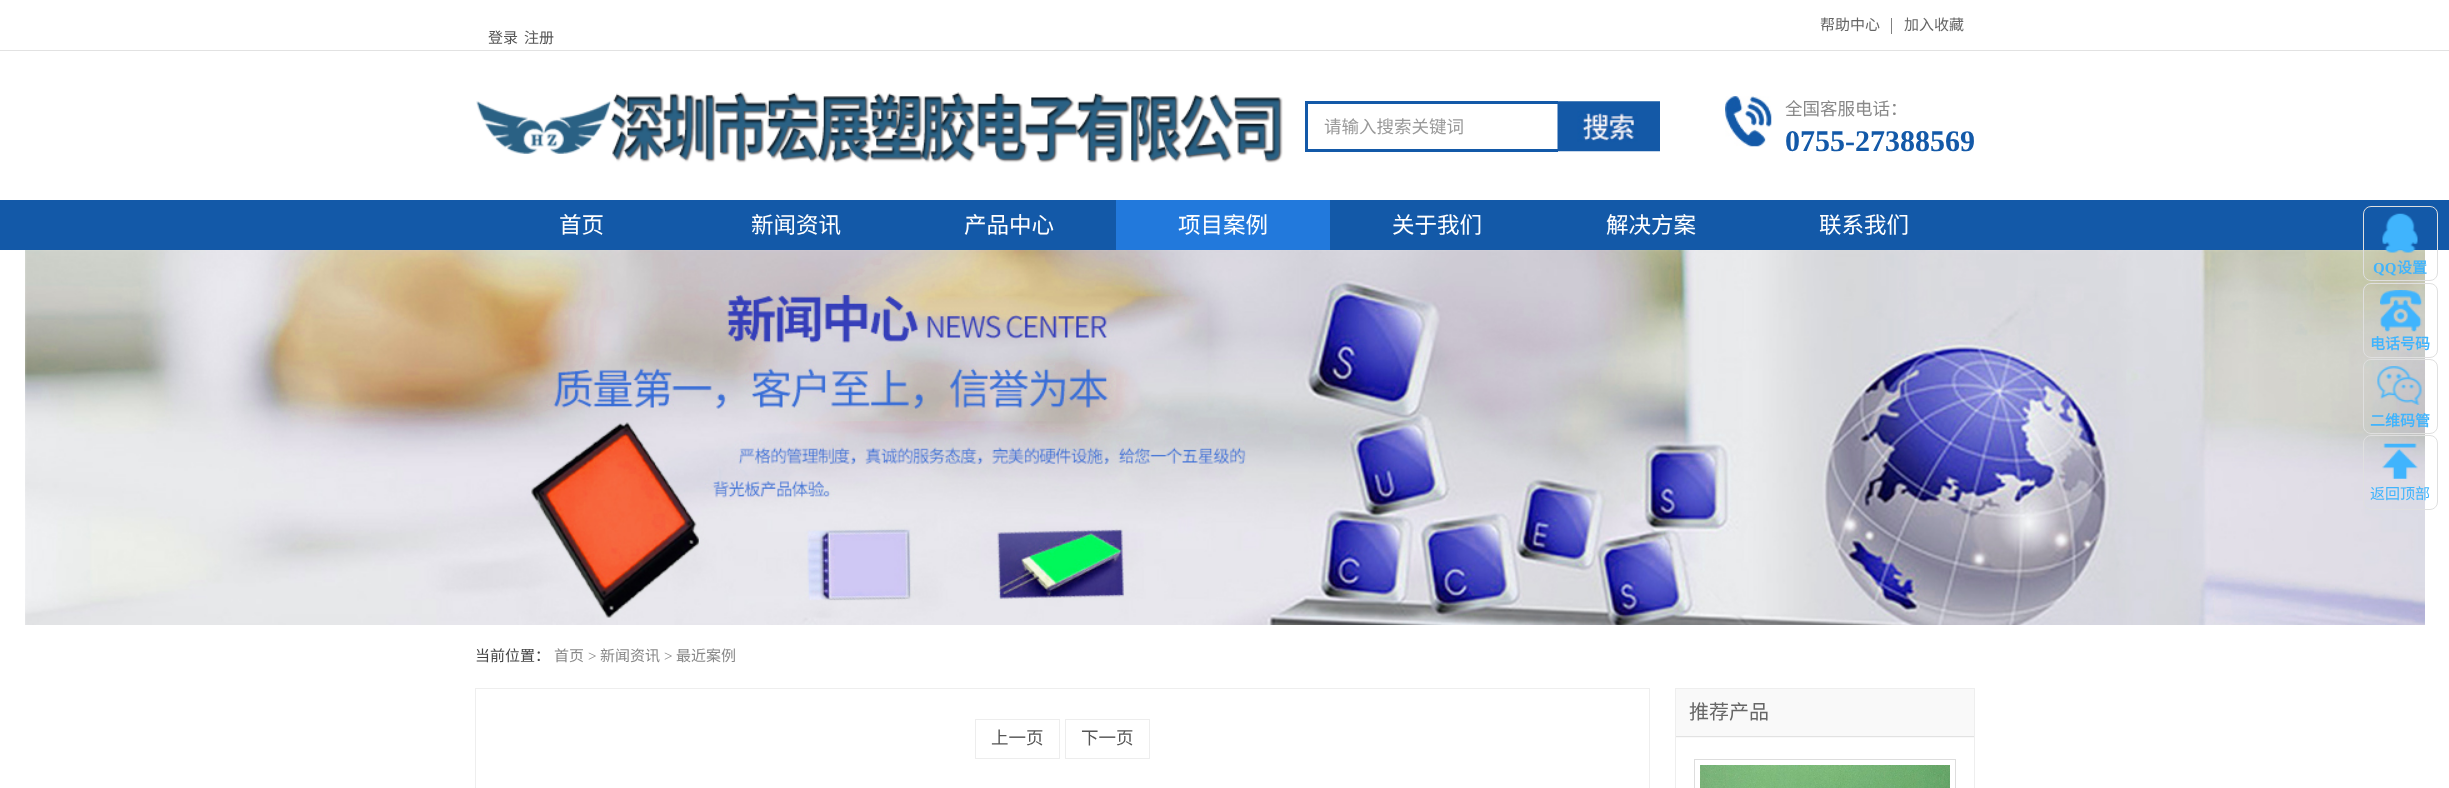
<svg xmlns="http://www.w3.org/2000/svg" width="2449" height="788">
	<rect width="100%" height="100%" fill="#FFFFFF" />
	<rect x="0" y="50" width="2449" height="1" fill="#E2E2E2" />
	<text x="1820" y="30" font-family="Noto Sans CJK SC" font-size="15" fill="#666666">帮助中心</text>
	<rect x="1891" y="18" width="1" height="16" fill="#808080" />
	<text x="1904" y="30" font-family="Noto Sans CJK SC" font-size="15" fill="#666666">加入收藏</text>
	<g font-family="Noto Sans CJK SC" font-size="15" fill="#555555">
		<text x="488" y="43">登录</text>
		<text x="524" y="43">注册</text>
	</g>
	<image x="476" y="92" width="807" height="71" href="assets/img1.png" />
	<rect x="1305" y="101" width="253" height="3" fill="#1359A8" />
	<rect x="1305" y="149" width="253" height="3" fill="#1359A8" />
	<rect x="1305" y="101" width="3" height="50" fill="#1359A8" />
	<text x="1324" y="133" font-family="Noto Sans CJK SC" font-size="17.5" fill="#999999">请输入搜索关键词</text>
	<image x="1557" y="101" width="103" height="51" href="assets/img2.png" />
	<image x="1725" y="96" width="47" height="51" href="assets/img3.png" />
	<text x="1785" y="115" font-family="Noto Sans CJK SC" font-size="17.5" fill="#888888">全国客服电话：</text>
	<text x="1785" y="151" font-family="Liberation Serif" font-size="30" font-weight="700" fill="#1359A8">0755-27388569</text>
	<rect x="0" y="200" width="2449" height="50" fill="#1359A8" />
	<g font-family="Noto Sans CJK SC" font-size="22.5" fill="#FFFFFF">
		<text x="559" y="233">首页</text>
		<text x="751" y="233">新闻资讯</text>
		<text x="964" y="233">产品中心</text>
	</g>
	<rect x="1116" y="200" width="214" height="50" fill="#2279DC" />
	<g font-family="Noto Sans CJK SC" font-size="22.5" fill="#FFFFFF">
		<text x="1178" y="233">项目案例</text>
		<text x="1392" y="233">关于我们</text>
		<text x="1606" y="233">解决方案</text>
		<text x="1819" y="233">联系我们</text>
	</g>
	<image x="25" y="250" width="2400" height="375" href="assets/img4.png" />
	<image x="2382" y="213" width="36" height="40" href="assets/img5.png" />
	<rect x="2363.5" y="206.5" width="74" height="74" rx="7.5" fill="none" stroke="#DFDFDF" />
	<text x="2373" y="273" font-family="Liberation Serif" font-size="15" font-weight="700" fill="#40B4FD">QQ</text>
	<text x="2397" y="273" font-family="Noto Sans CJK SC" font-size="15" font-weight="700" fill="#40B4FD">设置</text>
	<image x="2380" y="290" width="42" height="42" href="assets/img6.png" />
	<rect x="2363.5" y="283.5" width="74" height="74" rx="7.5" fill="none" stroke="#DFDFDF" />
	<text x="2370" y="349" font-family="Noto Sans CJK SC" font-size="15" font-weight="700" fill="#40B4FD">电话号码</text>
	<image x="2377" y="366" width="45" height="39" href="assets/img7.png" />
	<rect x="2363.5" y="359.5" width="74" height="74" rx="7.5" fill="none" stroke="#DFDFDF" />
	<text x="2370" y="426" font-family="Noto Sans CJK SC" font-size="15" font-weight="700" fill="#40B4FD">二维码管</text>
	<image x="2382" y="443" width="36" height="36" href="assets/img8.png" />
	<rect x="2363.5" y="435.5" width="74" height="74" rx="7.5" fill="none" stroke="#DFDFDF" />
	<text x="2370" y="499" font-family="Noto Sans CJK SC" font-size="15" fill="#40B4FD">返回顶部</text>
	<text x="475" y="661" font-family="Noto Sans CJK SC" font-size="15" fill="#444444">当前位置：</text>
	<text x="554" y="661" font-family="Noto Sans CJK SC" font-size="15" fill="#888888">首页</text>
	<text x="588" y="661" font-family="Liberation Serif" font-size="15" fill="#888888">&gt;</text>
	<text x="600" y="661" font-family="Noto Sans CJK SC" font-size="15" fill="#888888">新闻资讯</text>
	<text x="664" y="661" font-family="Liberation Serif" font-size="15" fill="#888888">&gt;</text>
	<text x="676" y="661" font-family="Noto Sans CJK SC" font-size="15" fill="#888888">最近案例</text>
	<rect x="1675.5" y="688.5" width="299" height="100" fill="none" stroke="#EEEEEE" />
	<rect x="1676" y="689" width="298" height="49" fill="#F9F9F9" />
	<rect x="1676" y="736" width="298" height="1" fill="#E2E2E2" />
	<text x="1689" y="719" font-family="Noto Sans CJK SC" font-size="20" fill="#666666">推荐产品</text>
	<rect x="1694.5" y="759.5" width="261" height="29" fill="none" stroke="#DDDDDD" />
	<image x="1700" y="765" width="250" height="23" href="assets/img9.png" />
	<rect x="475.5" y="688.5" width="1174" height="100" fill="none" stroke="#EEEEEE" />
	<rect x="975.5" y="719.5" width="84" height="39" fill="none" stroke="#EDEDED" />
	<text x="991" y="744" font-family="Noto Sans CJK SC" font-size="17.5" fill="#555555">上一页</text>
	<rect x="1065.5" y="719.5" width="84" height="39" fill="none" stroke="#EDEDED" />
	<text x="1081" y="744" font-family="Noto Sans CJK SC" font-size="17.5" fill="#555555">下一页</text>
</svg>
